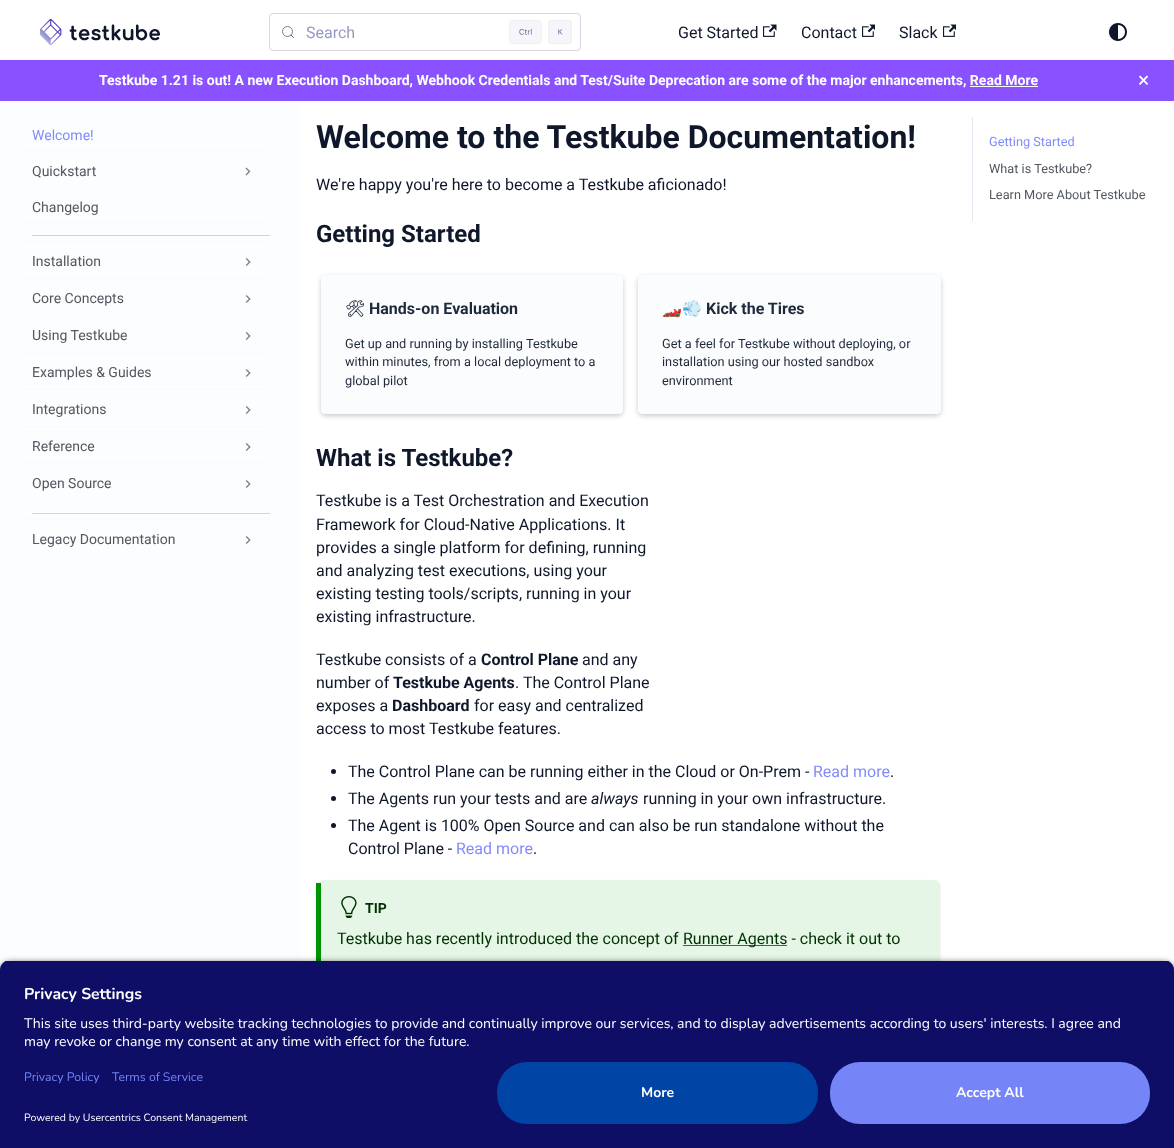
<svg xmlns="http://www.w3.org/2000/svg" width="1174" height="1148">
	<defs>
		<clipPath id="clip1"><path d="M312 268H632V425H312ZM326 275H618C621 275 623 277 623 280V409C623 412 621 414 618 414H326C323 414 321 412 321 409V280C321 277 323 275 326 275Z" clip-rule="evenodd" /></clipPath>
		<clipPath id="clip2"><path d="M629 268H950V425H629ZM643 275H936C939 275 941 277 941 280V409C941 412 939 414 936 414H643C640 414 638 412 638 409V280C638 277 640 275 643 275Z" clip-rule="evenodd" /></clipPath>
		<clipPath id="clip3"><path d="M10 960H1164C1169.5 960 1174 964.5 1174 970V1054H0V970C0 964.5 4.5 960 10 960Z" /></clipPath>
	</defs>
	<rect width="100%" height="100%" fill="#FFFFFF" />
	<rect x="0" y="59" width="1174" height="1" fill="#F8FAFC" />
	<image x="40" y="19" width="120" height="26" href="assets/img1.png" />
	<rect x="269.5" y="13.5" width="311" height="37" rx="3.5" fill="none" stroke="#D6D6E7" />
	<circle cx="287.5" cy="31.5" r="5" fill="none" stroke="#64748B" stroke-width="0.9" />
	<path d="M293.5 37.5L291 35" fill="none" stroke="#64748B" stroke-linecap="round" stroke-linejoin="round" />
	<text x="306" y="38" font-family="Roboto" font-size="16" fill="#9698C3">Search</text>
	<rect x="509" y="20" width="33" height="24" rx="4" fill="#F5F5FA" />
	<rect x="509.5" y="20.5" width="32" height="23" rx="3.5" fill="none" stroke="#D6D6E7" stroke-opacity="0.2" />
	<image x="519" y="28" width="13" height="7" href="assets/img2.png" />
	<rect x="548" y="20" width="24" height="24" rx="4" fill="#F5F5FA" />
	<rect x="548.5" y="20.5" width="23" height="23" rx="3.5" fill="none" stroke="#D6D6E7" stroke-opacity="0.2" />
	<image x="558" y="29" width="5" height="6" href="assets/img3.png" />
	<text x="678" y="38" font-family="Roboto" font-size="16" fill="#0F172A">Get Started</text>
	<image x="763" y="24" width="14" height="13" href="assets/img4.png" />
	<text x="801" y="38" font-family="Roboto" font-size="16" fill="#0F172A">Contact</text>
	<image x="862" y="24" width="13" height="13" href="assets/img5.png" />
	<text x="899" y="38" font-family="Roboto" font-size="16" fill="#0F172A">Slack</text>
	<image x="943" y="24" width="13" height="13" href="assets/img5.png" />
	<image x="1109" y="23" width="18" height="18" href="assets/img6.png" />
	<rect x="0" y="60" width="1174" height="41" fill="#8951FF" />
	<text x="99" y="85" font-family="Roboto" font-size="14" font-weight="700" fill="#FFFFFF">Testkube 1.21 is out! A new Execution Dashboard, Webhook Credentials and Test/Suite Deprecation are some of the major enhancements, Read More</text>
	<rect x="970" y="86" width="68" height="1" fill="#FFFFFF" />
	<text x="1138" y="87" font-family="Roboto" font-size="21" fill="#FFFFFF">×</text>
	<rect x="0" y="101" width="300" height="869" fill="#FBFDFE" />
	<rect x="20" y="151" width="250" height="1" fill="#F8FAFC" />
	<text x="32" y="140" font-family="Roboto" font-size="14" fill="#818CF8">Welcome!</text>
	<rect x="20" y="188" width="250" height="1" fill="#F8FAFC" />
	<text x="32" y="176" font-family="Roboto" font-size="14" fill="#525860">Quickstart</text>
	<image x="245" y="167" width="6" height="9" href="assets/img7.png" />
	<rect x="20" y="222" width="250" height="1" fill="#F8FAFC" />
	<text x="32" y="212" font-family="Roboto" font-size="14" fill="#525860">Changelog</text>
	<rect x="20" y="241" width="250" height="1" fill="#F8FAFC" />
	<rect x="32" y="235" width="238" height="1" fill="#CBD5E1" />
	<rect x="20" y="278" width="250" height="1" fill="#F8FAFC" />
	<text x="32" y="266" font-family="Roboto" font-size="14" fill="#525860">Installation</text>
	<image x="245" y="258" width="6" height="8" href="assets/img8.png" />
	<rect x="20" y="315" width="250" height="1" fill="#F8FAFC" />
	<text x="32" y="303" font-family="Roboto" font-size="14" fill="#525860">Core Concepts</text>
	<image x="245" y="295" width="6" height="8" href="assets/img8.png" />
	<rect x="20" y="352" width="250" height="1" fill="#F8FAFC" />
	<text x="32" y="340" font-family="Roboto" font-size="14" fill="#525860">Using Testkube</text>
	<image x="245" y="332" width="6" height="8" href="assets/img8.png" />
	<rect x="20" y="389" width="250" height="1" fill="#F8FAFC" />
	<text x="32" y="377" font-family="Roboto" font-size="14" fill="#525860">Examples &amp; Guides</text>
	<image x="245" y="369" width="6" height="8" href="assets/img8.png" />
	<rect x="20" y="426" width="250" height="1" fill="#F8FAFC" />
	<text x="32" y="414" font-family="Roboto" font-size="14" fill="#525860">Integrations</text>
	<image x="245" y="406" width="6" height="8" href="assets/img8.png" />
	<rect x="20" y="463" width="250" height="1" fill="#F8FAFC" />
	<text x="32" y="451" font-family="Roboto" font-size="14" fill="#525860">Reference</text>
	<image x="245" y="443" width="6" height="8" href="assets/img8.png" />
	<rect x="20" y="500" width="250" height="1" fill="#F8FAFC" />
	<text x="32" y="488" font-family="Roboto" font-size="14" fill="#525860">Open Source</text>
	<image x="245" y="480" width="6" height="8" href="assets/img8.png" />
	<rect x="20" y="519" width="250" height="1" fill="#F8FAFC" />
	<rect x="32" y="513" width="238" height="1" fill="#CBD5E1" />
	<rect x="20" y="556" width="250" height="1" fill="#F8FAFC" />
	<text x="32" y="544" font-family="Roboto" font-size="14" fill="#525860">Legacy Documentation</text>
	<image x="245" y="536" width="6" height="8" href="assets/img8.png" />
	<text x="316" y="148" font-family="Roboto" font-size="32" font-weight="700" fill="#0F172A">Welcome to the Testkube Documentation!</text>
	<text x="316" y="190" font-family="Roboto" font-size="16" fill="#0F172A">We're happy you're here to become a Testkube aficionado!</text>
	<text x="316" y="242" font-family="Roboto" font-size="24" font-weight="700" fill="#0F172A">Getting Started</text>
	<g clip-path="url(#clip1)">
		<rect x="321" y="277" width="302" height="139" rx="5" fill="#000000" fill-opacity="0.2" filter="blur(2.5px)" />
	</g>
	<rect x="321" y="275" width="302" height="139" rx="5" fill="#F8FAFC" fill-opacity="0.56" />
	<text x="345" y="314" font-family="Noto Emoji" font-size="16" font-weight="700" fill="#1E293B">🛠</text>
	<text x="369" y="314" font-family="Roboto" font-size="16" font-weight="700" fill="#1E293B">Hands-on Evaluation</text>
	<g font-family="Roboto" font-size="12.75" fill="#1E293B">
		<text x="345" y="348">Get up and running by installing Testkube</text>
		<text x="345" y="366">within minutes, from a local deployment to a</text>
		<text x="345" y="385">global pilot</text>
	</g>
	<g clip-path="url(#clip2)">
		<rect x="638" y="277" width="303" height="139" rx="5" fill="#000000" fill-opacity="0.2" filter="blur(2.5px)" />
	</g>
	<rect x="638" y="275" width="303" height="139" rx="5" fill="#F8FAFC" fill-opacity="0.56" />
	<text x="662" y="314" font-family="Noto Color Emoji" font-size="16" font-weight="700" fill="#1E293B">🏎💨</text>
	<text x="706" y="314" font-family="Roboto" font-size="16" font-weight="700" fill="#1E293B">Kick the Tires</text>
	<g font-family="Roboto" font-size="12.75" fill="#1E293B">
		<text x="662" y="348">Get a feel for Testkube without deploying, or</text>
		<text x="662" y="366">installation using our hosted sandbox</text>
		<text x="662" y="385">environment</text>
	</g>
	<text x="316" y="466" font-family="Roboto" font-size="24" font-weight="700" fill="#0F172A">What is Testkube?</text>
	<g font-family="Roboto" font-size="16" fill="#0F172A">
		<text x="316" y="506">Testkube is a Test Orchestration and Execution</text>
		<text x="316" y="530">Framework for Cloud-Native Applications. It</text>
		<text x="316" y="553">provides a single platform for defining, running</text>
		<text x="316" y="576">and analyzing test executions, using your</text>
		<text x="316" y="599">existing testing tools/scripts, running in your</text>
		<text x="316" y="622">existing infrastructure.</text>
		<text x="316" y="665">Testkube consists of a</text>
	</g>
	<text x="481" y="665" font-family="Roboto" font-size="16" font-weight="700" fill="#0F172A">Control Plane</text>
	<g font-family="Roboto" font-size="16" fill="#0F172A">
		<text x="582" y="665">and any</text>
		<text x="316" y="688">number of</text>
	</g>
	<text x="393" y="688" font-family="Roboto" font-size="16" font-weight="700" fill="#0F172A">Testkube Agents</text>
	<g font-family="Roboto" font-size="16" fill="#0F172A">
		<text x="515" y="688">. The Control Plane</text>
		<text x="316" y="711">exposes a</text>
	</g>
	<text x="392" y="711" font-family="Roboto" font-size="16" font-weight="700" fill="#0F172A">Dashboard</text>
	<g font-family="Roboto" font-size="16" fill="#0F172A">
		<text x="474" y="711">for easy and centralized</text>
		<text x="316" y="734">access to most Testkube features.</text>
	</g>
	<circle cx="333.5" cy="771.5" r="2.5" fill="#0F172A" />
	<text x="348" y="777" font-family="Roboto" font-size="16" fill="#0F172A">The Control Plane can be running either in the Cloud or On-Prem -</text>
	<text x="813" y="777" font-family="Roboto" font-size="16" fill="#818CF8">Read more</text>
	<text x="890" y="777" font-family="Roboto" font-size="16" fill="#0F172A">.</text>
	<circle cx="333.5" cy="798.5" r="2.5" fill="#0F172A" />
	<text x="348" y="804" font-family="Roboto" font-size="16" fill="#0F172A">The Agents run your tests and are</text>
	<text x="591" y="804" font-family="Roboto" font-size="16" font-style="italic" fill="#0F172A">always</text>
	<text x="643" y="804" font-family="Roboto" font-size="16" fill="#0F172A">running in your own infrastructure.</text>
	<circle cx="333.5" cy="825.5" r="2.5" fill="#0F172A" />
	<g font-family="Roboto" font-size="16" fill="#0F172A">
		<text x="348" y="831">The Agent is 100% Open Source and can also be run standalone without the</text>
		<text x="348" y="854">Control Plane -</text>
	</g>
	<text x="456" y="854" font-family="Roboto" font-size="16" fill="#818CF8">Read more</text>
	<text x="533" y="854" font-family="Roboto" font-size="16" fill="#0F172A">.</text>
	<rect x="316" y="881" width="624" height="133" rx="6" fill="#000000" fill-opacity="0.1" filter="blur(1px)" />
	<path d="M322 880H934C937 880 940 883 940 886V1007C940 1010 937 1013 934 1013H322C322 1013 321 1010 321 1007V886C321 883 322 880 322 880Z" fill="#E6F6E6" />
	<rect x="316" y="883" width="5" height="78" fill="#009400" />
	<image x="341" y="896" width="16" height="22" href="assets/img9.png" />
	<text x="365" y="913" font-family="Roboto" font-size="14" font-weight="700" fill="#003100">TIP</text>
	<text x="337" y="944" font-family="Roboto" font-size="16" fill="#003100">Testkube has recently introduced the concept of</text>
	<rect x="683" y="945" width="104" height="1" fill="#009400" />
	<text x="683" y="944" font-family="Roboto" font-size="16" fill="#003100">Runner Agents - check it out to</text>
	<rect x="972" y="117" width="1" height="104" fill="#E2E8F0" />
	<text x="989" y="146" font-family="Roboto" font-size="12.75" fill="#818CF8">Getting Started</text>
	<g font-family="Roboto" font-size="12.75" fill="#525860">
		<text x="989" y="173">What is Testkube?</text>
		<text x="989" y="199">Learn More About Testkube</text>
	</g>
	<rect x="0" y="963" width="1174" height="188" rx="10" fill="#000000" fill-opacity="0.8" filter="blur(3.5px)" />
	<g clip-path="url(#clip3)">
		<rect x="0" y="961" width="1174" height="93" fill="#0E0E66" />
	</g>
	<text x="24" y="999" font-family="Nunito" font-size="15.75" font-weight="700" fill="#FFFFFF">Privacy Settings</text>
	<g font-family="Nunito" font-size="14" fill="#FFFFFF">
		<text x="24" y="1028">This site uses third-party website tracking technologies to provide and continually improve our services, and to display advertisements according to users' interests. I agree and</text>
		<text x="24" y="1046">may revoke or change my consent at any time with effect for the future.</text>
	</g>
	<rect x="0" y="1054" width="1174" height="94" fill="#0E0E66" />
	<g font-family="Nunito" font-size="12.25" fill="#7584F7">
		<text x="24" y="1081">Privacy Policy</text>
		<text x="112" y="1081">Terms of Service</text>
	</g>
	<text x="24" y="1121" font-family="Nunito" font-size="10.5" fill="#FFFFFF">Powered by Usercentrics Consent Management</text>
	<rect x="497" y="1062" width="321" height="62" rx="30" fill="#0045A5" />
	<text x="641" y="1097" font-family="Nunito" font-size="14" font-weight="700" fill="#FFFFFF">More</text>
	<rect x="830" y="1062" width="320" height="62" rx="30" fill="#7584F7" />
	<text x="956" y="1097" font-family="Nunito" font-size="14" font-weight="700" fill="#FFFFFF">Accept All</text>
</svg>
